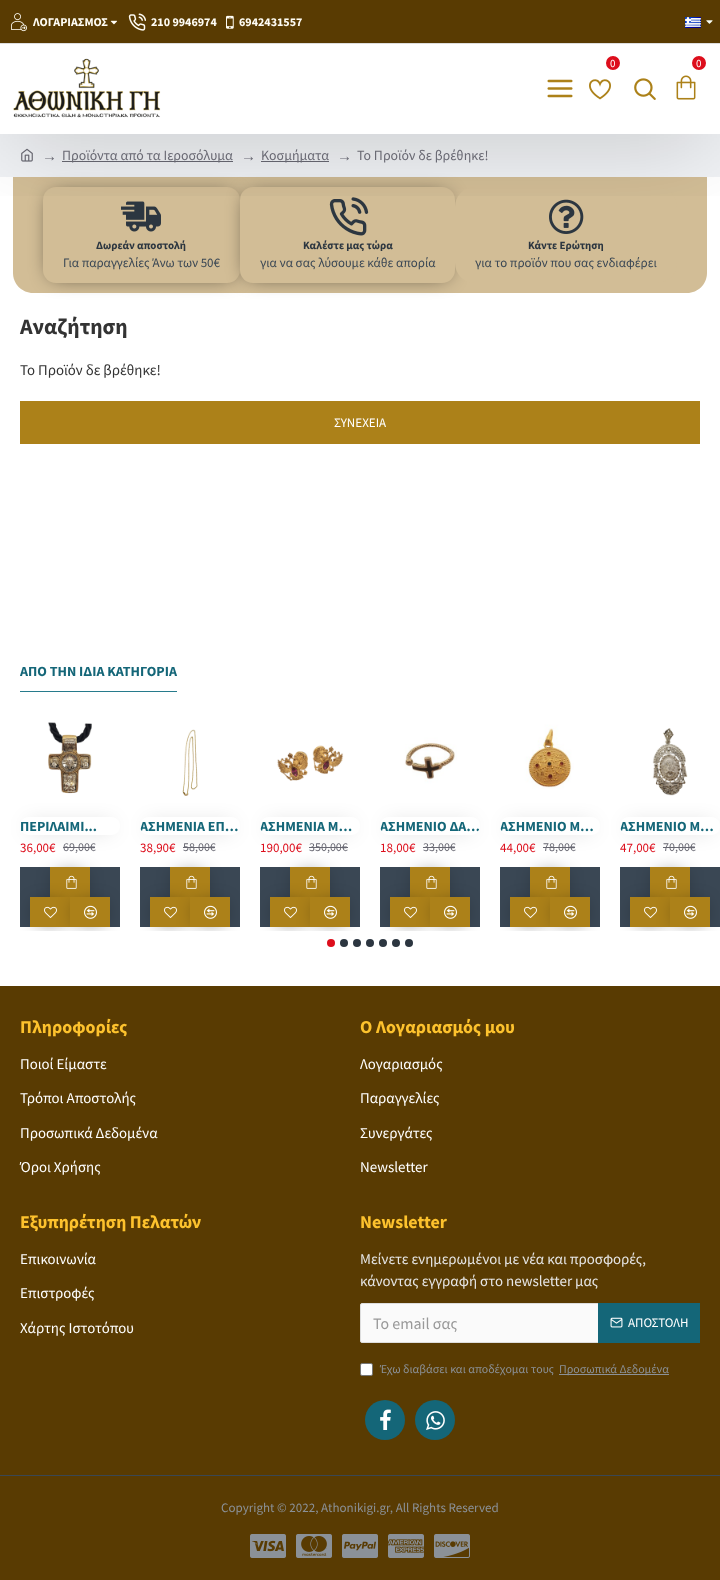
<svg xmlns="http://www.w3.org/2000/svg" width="720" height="1580">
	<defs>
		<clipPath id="clip1"><rect x="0" y="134" width="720" height="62" /></clipPath>
		<clipPath id="clip2"><path d="M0 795H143V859H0ZM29 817H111C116 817 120 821 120 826C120 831 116 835 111 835H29C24 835 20 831 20 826C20 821 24 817 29 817Z" clip-rule="evenodd" /></clipPath>
		<clipPath id="clip3"><rect x="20" y="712" width="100" height="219" /></clipPath>
		<clipPath id="clip4"><path d="M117 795H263V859H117ZM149 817H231C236 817 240 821 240 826C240 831 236 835 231 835H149C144 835 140 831 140 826C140 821 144 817 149 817Z" clip-rule="evenodd" /></clipPath>
		<clipPath id="clip5"><rect x="140" y="817" width="100" height="18" rx="9" /></clipPath>
		<clipPath id="clip6"><rect x="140" y="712" width="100" height="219" /></clipPath>
		<clipPath id="clip7"><path d="M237 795H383V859H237ZM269 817H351C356 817 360 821 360 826C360 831 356 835 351 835H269C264 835 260 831 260 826C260 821 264 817 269 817Z" clip-rule="evenodd" /></clipPath>
		<clipPath id="clip8"><rect x="260" y="817" width="100" height="18" rx="9" /></clipPath>
		<clipPath id="clip9"><rect x="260" y="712" width="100" height="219" /></clipPath>
		<clipPath id="clip10"><path d="M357 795H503V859H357ZM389 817H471C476 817 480 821 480 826C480 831 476 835 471 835H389C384 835 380 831 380 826C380 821 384 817 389 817Z" clip-rule="evenodd" /></clipPath>
		<clipPath id="clip11"><rect x="380" y="817" width="100" height="18" rx="9" /></clipPath>
		<clipPath id="clip12"><rect x="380" y="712" width="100" height="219" /></clipPath>
		<clipPath id="clip13"><path d="M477 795H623V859H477ZM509 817H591C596 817 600 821 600 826C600 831 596 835 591 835H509C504 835 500 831 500 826C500 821 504 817 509 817Z" clip-rule="evenodd" /></clipPath>
		<clipPath id="clip14"><rect x="500" y="817" width="100" height="18" rx="9" /></clipPath>
		<clipPath id="clip15"><rect x="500" y="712" width="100" height="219" /></clipPath>
		<clipPath id="clip16"><path d="M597 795H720V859H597ZM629 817H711C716 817 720 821 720 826C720 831 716 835 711 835H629C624 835 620 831 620 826C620 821 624 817 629 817Z" clip-rule="evenodd" /></clipPath>
		<clipPath id="clip17"><rect x="620" y="817" width="100" height="18" rx="9" /></clipPath>
		<clipPath id="clip18"><rect x="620" y="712" width="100" height="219" /></clipPath>
	</defs>
	<rect width="100%" height="100%" fill="#FFFFFF" />
	<rect x="0" y="134" width="720" height="43" fill="#F0F2F5" />
	<image x="21" y="148" width="12" height="14" href="assets/img12.png" />
	<rect x="62" y="161" width="171" height="1" fill="#696973" />
	<rect x="261" y="161" width="68" height="1" fill="#696973" />
	<path d="M13 177H707V273C707 284 698 293 687 293H33C22 293 13 284 13 273Z" fill="#D2BD96" />
	<rect x="51" y="196" width="181" height="80" rx="5" fill="#000000" fill-opacity="0.75" filter="blur(10px)" />
	<rect x="43" y="187" width="197" height="96" rx="13" fill="#D2BD96" />
	<image x="121" y="201" width="40" height="31" href="assets/img13.png" />
	<rect x="248" y="196" width="199" height="80" rx="5" fill="#000000" fill-opacity="0.75" filter="blur(10px)" />
	<rect x="240" y="187" width="215" height="96" rx="13" fill="#D2BD96" />
	<image x="329" y="197" width="40" height="39" href="assets/img14.png" />
	<rect x="455" y="187" width="222" height="96" rx="20" fill="#D2BD96" />
	<image x="549" y="199" width="35" height="35" href="assets/img15.png" />
	<g clip-path="url(#clip1)">
		<rect x="10" y="69" width="700" height="70" fill="#000000" fill-opacity="0.2" filter="blur(45px)" />
	</g>
	<rect x="0" y="0" width="720" height="43" fill="#593B02" />
	<rect x="0" y="43" width="720" height="1" fill="#DDDDDD" />
	<image x="11" y="13" width="16" height="19" href="assets/img1.png" />
	<text x="33" y="26" font-family="Source Sans Pro" font-size="12" font-weight="700" fill="#FFFDF5">ΛΟΓΑΡΙΑΣΜΟΣ</text>
	<image x="110" y="20" width="7" height="5" href="assets/img2.png" />
	<image x="128" y="13" width="18" height="18" href="assets/img3.png" />
	<text x="151" y="26" font-family="Source Sans Pro" font-size="12" font-weight="700" fill="#FFFDF5">210 9946974</text>
	<image x="226" y="15" width="8" height="14" href="assets/img4.png" />
	<text x="239" y="26" font-family="Source Sans Pro" font-size="12" font-weight="700" fill="#FFFDF5">6942431557</text>
	<image x="685" y="17" width="16" height="11" href="assets/img5.png" />
	<image x="706" y="20" width="7" height="4" href="assets/img6.png" />
	<image x="13" y="58" width="148" height="60" href="assets/img7.png" />
	<circle cx="613" cy="63" r="8" fill="#DD0E1C" stroke="#FFFFFF" stroke-width="2" />
	<text x="610" y="67" font-family="Source Sans Pro" font-size="11" fill="#FFFFFF">0</text>
	<image x="589" y="79" width="22" height="21" href="assets/img8.png" />
	<circle cx="699" cy="63" r="8" fill="#DD0E1C" stroke="#FFFFFF" stroke-width="2" />
	<text x="696" y="67" font-family="Source Sans Pro" font-size="11" fill="#FFFFFF">0</text>
	<image x="676" y="75" width="20" height="25" href="assets/img9.png" />
	<image x="547" y="79" width="26" height="19" href="assets/img10.png" />
	<image x="634" y="78" width="22" height="22" href="assets/img11.png" />
	<text x="42" y="161" font-family="Liberation Serif" font-size="15" fill="#696973">→</text>
	<text x="62" y="160" font-family="Source Sans Pro" font-size="14" fill="#696973">Προϊόντα από τα Ιεροσόλυμα</text>
	<text x="241" y="161" font-family="Liberation Serif" font-size="15" fill="#696973">→</text>
	<text x="261" y="160" font-family="Source Sans Pro" font-size="14" fill="#696973">Κοσμήματα</text>
	<text x="337" y="161" font-family="Liberation Serif" font-size="15" fill="#696973">→</text>
	<text x="357" y="160" font-family="Source Sans Pro" font-size="14" fill="#696973">Το Προϊόν δε βρέθηκε!</text>
	<text x="96" y="249" font-family="Source Sans Pro" font-size="11" font-weight="700" fill="#2C3640">Δωρεάν αποστολή</text>
	<text x="63" y="267" font-family="Source Sans Pro" font-size="13" fill="#3A4754">Για παραγγελίες Άνω των 50€</text>
	<text x="303" y="249" font-family="Source Sans Pro" font-size="11" font-weight="700" fill="#2C3640">Καλέστε μας τώρα</text>
	<text x="260" y="267" font-family="Source Sans Pro" font-size="13" fill="#3A4754">για να σας λύσουμε κάθε απορία</text>
	<text x="528" y="249" font-family="Source Sans Pro" font-size="11" font-weight="700" fill="#2C3640">Κάντε Ερώτηση</text>
	<text x="475" y="267" font-family="Source Sans Pro" font-size="13" fill="#3A4754">για το προϊόν που σας ενδιαφέρει</text>
	<text x="20" y="334" font-family="Source Sans Pro" font-size="22" font-weight="700" fill="#333333">Αναζήτηση</text>
	<text x="20" y="375" font-family="Source Sans Pro" font-size="15" fill="#333333">Το Προϊόν δε βρέθηκε!</text>
	<rect x="20" y="401" width="680" height="43" fill="#AC8119" />
	<text x="334" y="427" font-family="Source Sans Pro" font-size="13" fill="#FFFFFF">ΣΥΝΕΧΕΙΑ</text>
	<rect x="20" y="691" width="157" height="1" fill="#277B8C" />
	<text x="20" y="676" font-family="Source Sans Pro" font-size="14" font-weight="700" fill="#146678">ΑΠΟ ΤΗΝ ΙΔΙΑ ΚΑΤΗΓΟΡΙΑ</text>
	<image x="20" y="712" width="100" height="100" href="assets/img16.png" />
	<rect x="63" y="847" width="32" height="1" fill="#696973" />
	<g clip-path="url(#clip2)">
		<rect x="28" y="826" width="84" height="2" rx="1" fill="#000000" fill-opacity="0.75" filter="blur(10px)" />
	</g>
	<text x="20" y="831" font-family="Source Sans Pro" font-size="14" font-weight="700" fill="#146678">ΠΕΡΙΛΑΙΜΙ...</text>
	<text x="20" y="852" font-family="Source Sans Pro" font-size="13" fill="#DD0E1C">36,00€</text>
	<text x="63" y="851" font-family="Source Sans Pro" font-size="12" fill="#696973">69,00€</text>
	<rect x="20" y="867" width="100" height="60" fill="#3A4754" />
	<rect x="58" y="876" width="24" height="14" fill="#000000" fill-opacity="0.75" filter="blur(10px)" />
	<rect x="50" y="867" width="40" height="30" fill="#AC8119" />
	<image x="66" y="875" width="11" height="14" href="assets/img17.png" />
	<g clip-path="url(#clip3)">
		<rect x="38" y="906" width="24" height="14" fill="#000000" fill-opacity="0.75" filter="blur(10px)" />
	</g>
	<rect x="30" y="897" width="40" height="30" fill="#AC8119" />
	<image x="44" y="906" width="13" height="12" href="assets/img18.png" />
	<g clip-path="url(#clip3)">
		<rect x="78" y="906" width="24" height="14" fill="#000000" fill-opacity="0.75" filter="blur(10px)" />
	</g>
	<rect x="70" y="897" width="40" height="30" fill="#AC8119" />
	<image x="84" y="905" width="13" height="14" href="assets/img19.png" />
	<image x="140" y="712" width="100" height="100" href="assets/img20.png" />
	<rect x="183" y="847" width="32" height="1" fill="#696973" />
	<g clip-path="url(#clip4)">
		<rect x="148" y="826" width="84" height="2" rx="1" fill="#000000" fill-opacity="0.75" filter="blur(10px)" />
	</g>
	<g clip-path="url(#clip5)">
		<text x="140" y="831" font-family="Source Sans Pro" font-size="14" font-weight="700" fill="#146678">ΑΣΗΜΕΝΙΑ ΕΠ…</text>
	</g>
	<text x="140" y="852" font-family="Source Sans Pro" font-size="13" fill="#DD0E1C">38,90€</text>
	<text x="183" y="851" font-family="Source Sans Pro" font-size="12" fill="#696973">58,00€</text>
	<rect x="140" y="867" width="100" height="60" fill="#3A4754" />
	<rect x="178" y="876" width="24" height="14" fill="#000000" fill-opacity="0.75" filter="blur(10px)" />
	<rect x="170" y="867" width="40" height="30" fill="#AC8119" />
	<image x="186" y="875" width="11" height="14" href="assets/img17.png" />
	<g clip-path="url(#clip6)">
		<rect x="158" y="906" width="24" height="14" fill="#000000" fill-opacity="0.75" filter="blur(10px)" />
	</g>
	<rect x="150" y="897" width="40" height="30" fill="#AC8119" />
	<image x="164" y="906" width="13" height="12" href="assets/img18.png" />
	<g clip-path="url(#clip6)">
		<rect x="198" y="906" width="24" height="14" fill="#000000" fill-opacity="0.75" filter="blur(10px)" />
	</g>
	<rect x="190" y="897" width="40" height="30" fill="#AC8119" />
	<image x="204" y="905" width="13" height="14" href="assets/img19.png" />
	<image x="260" y="712" width="100" height="100" href="assets/img21.png" />
	<rect x="309" y="847" width="39" height="1" fill="#696973" />
	<g clip-path="url(#clip7)">
		<rect x="268" y="826" width="84" height="2" rx="1" fill="#000000" fill-opacity="0.75" filter="blur(10px)" />
	</g>
	<g clip-path="url(#clip8)">
		<text x="260" y="831" font-family="Source Sans Pro" font-size="14" font-weight="700" fill="#146678">ΑΣΗΜΕΝΙΑ Μ…</text>
	</g>
	<text x="260" y="852" font-family="Source Sans Pro" font-size="13" fill="#DD0E1C">190,00€</text>
	<text x="309" y="851" font-family="Source Sans Pro" font-size="12" fill="#696973">350,00€</text>
	<rect x="260" y="867" width="100" height="60" fill="#3A4754" />
	<rect x="298" y="876" width="24" height="14" fill="#000000" fill-opacity="0.75" filter="blur(10px)" />
	<rect x="290" y="867" width="40" height="30" fill="#AC8119" />
	<image x="306" y="875" width="11" height="14" href="assets/img17.png" />
	<g clip-path="url(#clip9)">
		<rect x="278" y="906" width="24" height="14" fill="#000000" fill-opacity="0.75" filter="blur(10px)" />
	</g>
	<rect x="270" y="897" width="40" height="30" fill="#AC8119" />
	<image x="284" y="906" width="13" height="12" href="assets/img18.png" />
	<g clip-path="url(#clip9)">
		<rect x="318" y="906" width="24" height="14" fill="#000000" fill-opacity="0.75" filter="blur(10px)" />
	</g>
	<rect x="310" y="897" width="40" height="30" fill="#AC8119" />
	<image x="324" y="905" width="13" height="14" href="assets/img19.png" />
	<image x="380" y="712" width="100" height="100" href="assets/img22.png" />
	<rect x="423" y="847" width="32" height="1" fill="#696973" />
	<g clip-path="url(#clip10)">
		<rect x="388" y="826" width="84" height="2" rx="1" fill="#000000" fill-opacity="0.75" filter="blur(10px)" />
	</g>
	<g clip-path="url(#clip11)">
		<text x="380" y="831" font-family="Source Sans Pro" font-size="14" font-weight="700" fill="#146678">ΑΣΗΜΕΝΙΟ ΔΑ…</text>
	</g>
	<text x="380" y="852" font-family="Source Sans Pro" font-size="13" fill="#DD0E1C">18,00€</text>
	<text x="423" y="851" font-family="Source Sans Pro" font-size="12" fill="#696973">33,00€</text>
	<rect x="380" y="867" width="100" height="60" fill="#3A4754" />
	<rect x="418" y="876" width="24" height="14" fill="#000000" fill-opacity="0.75" filter="blur(10px)" />
	<rect x="410" y="867" width="40" height="30" fill="#AC8119" />
	<image x="426" y="875" width="11" height="14" href="assets/img17.png" />
	<g clip-path="url(#clip12)">
		<rect x="398" y="906" width="24" height="14" fill="#000000" fill-opacity="0.75" filter="blur(10px)" />
	</g>
	<rect x="390" y="897" width="40" height="30" fill="#AC8119" />
	<image x="404" y="906" width="13" height="12" href="assets/img18.png" />
	<g clip-path="url(#clip12)">
		<rect x="438" y="906" width="24" height="14" fill="#000000" fill-opacity="0.75" filter="blur(10px)" />
	</g>
	<rect x="430" y="897" width="40" height="30" fill="#AC8119" />
	<image x="444" y="905" width="13" height="14" href="assets/img19.png" />
	<image x="500" y="712" width="100" height="100" href="assets/img23.png" />
	<rect x="543" y="847" width="32" height="1" fill="#696973" />
	<g clip-path="url(#clip13)">
		<rect x="508" y="826" width="84" height="2" rx="1" fill="#000000" fill-opacity="0.75" filter="blur(10px)" />
	</g>
	<g clip-path="url(#clip14)">
		<text x="500" y="831" font-family="Source Sans Pro" font-size="14" font-weight="700" fill="#146678">ΑΣΗΜΕΝΙΟ Μ…</text>
	</g>
	<text x="500" y="852" font-family="Source Sans Pro" font-size="13" fill="#DD0E1C">44,00€</text>
	<text x="543" y="851" font-family="Source Sans Pro" font-size="12" fill="#696973">78,00€</text>
	<rect x="500" y="867" width="100" height="60" fill="#3A4754" />
	<rect x="538" y="876" width="24" height="14" fill="#000000" fill-opacity="0.75" filter="blur(10px)" />
	<rect x="530" y="867" width="40" height="30" fill="#AC8119" />
	<image x="546" y="875" width="11" height="14" href="assets/img17.png" />
	<g clip-path="url(#clip15)">
		<rect x="518" y="906" width="24" height="14" fill="#000000" fill-opacity="0.75" filter="blur(10px)" />
	</g>
	<rect x="510" y="897" width="40" height="30" fill="#AC8119" />
	<image x="524" y="906" width="13" height="12" href="assets/img18.png" />
	<g clip-path="url(#clip15)">
		<rect x="558" y="906" width="24" height="14" fill="#000000" fill-opacity="0.75" filter="blur(10px)" />
	</g>
	<rect x="550" y="897" width="40" height="30" fill="#AC8119" />
	<image x="564" y="905" width="13" height="14" href="assets/img19.png" />
	<image x="620" y="712" width="100" height="100" href="assets/img24.png" />
	<rect x="663" y="847" width="32" height="1" fill="#696973" />
	<g clip-path="url(#clip16)">
		<rect x="628" y="826" width="84" height="2" rx="1" fill="#000000" fill-opacity="0.75" filter="blur(10px)" />
	</g>
	<g clip-path="url(#clip17)">
		<text x="620" y="831" font-family="Source Sans Pro" font-size="14" font-weight="700" fill="#146678">ΑΣΗΜΕΝΙΟ Μ…</text>
	</g>
	<text x="620" y="852" font-family="Source Sans Pro" font-size="13" fill="#DD0E1C">47,00€</text>
	<text x="663" y="851" font-family="Source Sans Pro" font-size="12" fill="#696973">70,00€</text>
	<rect x="620" y="867" width="100" height="60" fill="#3A4754" />
	<rect x="658" y="876" width="24" height="14" fill="#000000" fill-opacity="0.75" filter="blur(10px)" />
	<rect x="650" y="867" width="40" height="30" fill="#AC8119" />
	<image x="666" y="875" width="11" height="14" href="assets/img17.png" />
	<g clip-path="url(#clip18)">
		<rect x="638" y="906" width="24" height="14" fill="#000000" fill-opacity="0.75" filter="blur(10px)" />
	</g>
	<rect x="630" y="897" width="40" height="30" fill="#AC8119" />
	<image x="644" y="906" width="13" height="12" href="assets/img18.png" />
	<g clip-path="url(#clip18)">
		<rect x="678" y="906" width="24" height="14" fill="#000000" fill-opacity="0.75" filter="blur(10px)" />
	</g>
	<rect x="670" y="897" width="40" height="30" fill="#AC8119" />
	<image x="684" y="905" width="13" height="14" href="assets/img19.png" />
	<circle cx="331" cy="943" r="4" fill="#DD0E1C" />
	<circle cx="344" cy="943" r="4" fill="#2C3640" />
	<circle cx="357" cy="943" r="4" fill="#2C3640" />
	<circle cx="370" cy="943" r="4" fill="#2C3640" />
	<circle cx="383" cy="943" r="4" fill="#2C3640" />
	<circle cx="396" cy="943" r="4" fill="#2C3640" />
	<circle cx="409" cy="943" r="4" fill="#2C3640" />
	<rect x="0" y="986" width="720" height="594" fill="#593B02" />
	<text x="20" y="1033" font-family="Source Sans Pro" font-size="18" font-weight="700" fill="#FDC22D">Πληροφορίες</text>
	<g font-family="Source Sans Pro" font-size="15" fill="#FFFFFF">
		<text x="20" y="1069">Ποιοί Είμαστε</text>
		<text x="20" y="1103">Τρόποι Αποστολής</text>
		<text x="20" y="1138">Προσωπικά Δεδομένα</text>
		<text x="20" y="1172">Όροι Χρήσης</text>
	</g>
	<text x="360" y="1033" font-family="Source Sans Pro" font-size="18" font-weight="700" fill="#FDC22D">Ο Λογαριασμός μου</text>
	<g font-family="Source Sans Pro" font-size="15" fill="#FFFFFF">
		<text x="360" y="1069">Λογαριασμός</text>
		<text x="360" y="1103">Παραγγελίες</text>
		<text x="360" y="1138">Συνεργάτες</text>
		<text x="360" y="1172">Newsletter</text>
	</g>
	<text x="20" y="1228" font-family="Source Sans Pro" font-size="18" font-weight="700" fill="#FDC22D">Εξυπηρέτηση Πελατών</text>
	<g font-family="Source Sans Pro" font-size="15" fill="#FFFFFF">
		<text x="20" y="1264">Επικοινωνία</text>
		<text x="20" y="1298">Επιστροφές</text>
		<text x="20" y="1333">Χάρτης Ιστοτόπου</text>
	</g>
	<text x="360" y="1228" font-family="Source Sans Pro" font-size="18" font-weight="700" fill="#FDC22D">Newsletter</text>
	<g font-family="Source Sans Pro" font-size="15" fill="#E6E6E6">
		<text x="360" y="1264">Μείνετε ενημερωμένοι με νέα και προσφορές,</text>
		<text x="360" y="1286">κάνοντας εγγραφή στο newsletter μας</text>
	</g>
	<rect x="360.5" y="1303.5" width="339" height="39" rx="1.5" fill="#FAFAFA" stroke="#DDDDDD" />
	<text x="373" y="1329" font-family="Source Sans Pro" font-size="16" fill="#999999">Το email σας</text>
	<rect x="598" y="1303" width="102" height="40" fill="#146678" />
	<image x="610" y="1317" width="13" height="11" href="assets/img25.png" />
	<text x="628" y="1327" font-family="Source Sans Pro" font-size="13" fill="#FFFFFF">ΑΠΟΣΤΟΛΗ</text>
	<rect x="360.5" y="1363.5" width="12" height="12" rx="1.5" fill="#FFFFFF" stroke="#767676" />
	<text x="380" y="1373" font-family="Source Sans Pro" font-size="12" fill="#8B9198">Έχω διαβάσει και αποδέχομαι τους</text>
	<rect x="559" y="1374" width="110" height="1" fill="#8B9198" />
	<text x="559" y="1373" font-family="Source Sans Pro" font-size="12" fill="#8B9198">Προσωπικά Δεδομένα</text>
	<circle cx="385" cy="1420" r="20" fill="#146678" />
	<image x="380" y="1409" width="11" height="21" href="assets/img26.png" />
	<circle cx="435" cy="1420" r="20" fill="#146678" />
	<image x="426" y="1411" width="19" height="19" href="assets/img27.png" />
	<rect x="0" y="1475" width="720" height="1" fill="#3A4754" />
	<text x="221" y="1512" font-family="Source Sans Pro" font-size="13" fill="#8B9198">Copyright © 2022, Athonikigi.gr, All Rights Reserved</text>
	<image x="250" y="1534" width="36" height="24" href="assets/img28.png" />
	<image x="296" y="1534" width="36" height="24" href="assets/img29.png" />
	<image x="342" y="1534" width="36" height="24" href="assets/img30.png" />
	<image x="388" y="1534" width="36" height="24" href="assets/img31.png" />
	<image x="434" y="1534" width="36" height="24" href="assets/img32.png" />
</svg>
